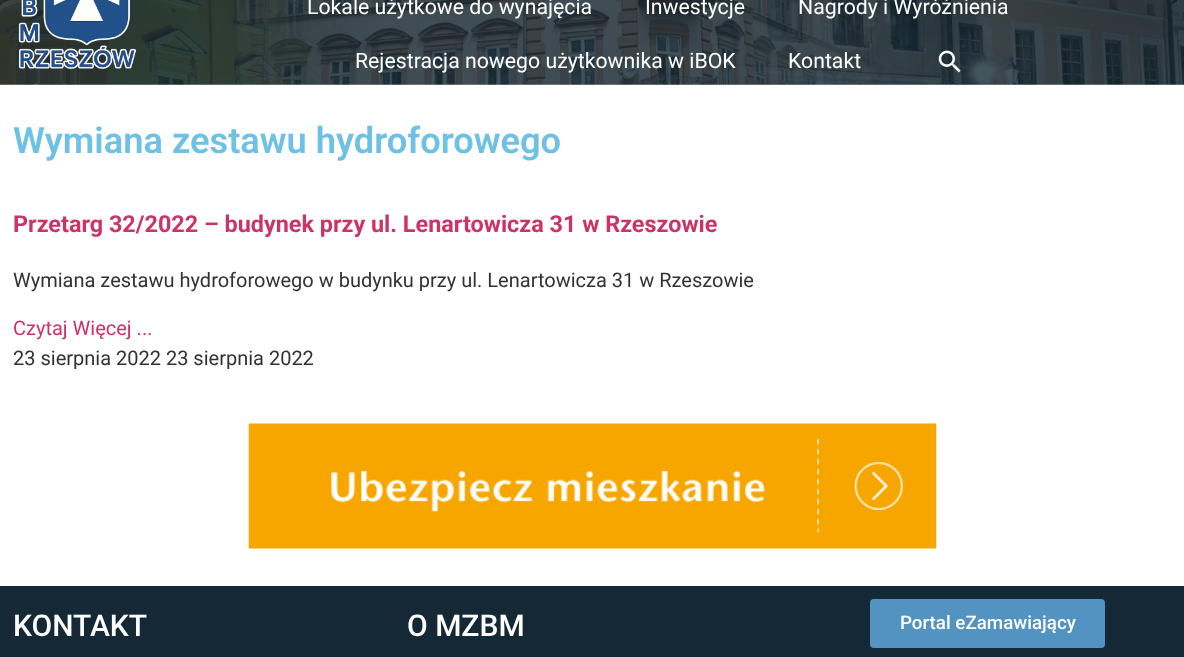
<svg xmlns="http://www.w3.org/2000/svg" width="1184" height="657">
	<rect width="100%" height="100%" fill="#FFFFFF" />
	<image x="0" y="0" width="1184" height="85" href="assets/img1.png" />
	<image x="18" y="0" width="119" height="69" href="assets/img2.png" />
	<g font-family="Roboto" font-size="21.25" fill="#FFFFFF">
		<text x="307" y="14">Lokale użytkowe do wynajęcia</text>
		<text x="645" y="14">Inwestycje</text>
		<text x="798" y="14">Nagrody i Wyróżnienia</text>
		<text x="355" y="68">Rejestracja nowego użytkownika w iBOK</text>
		<text x="788" y="68">Kontakt</text>
	</g>
	<image x="938" y="50" width="23" height="23" href="assets/img3.png" />
	<text x="13" y="153" font-family="Roboto" font-size="36.25" font-weight="600" fill="#6EC1E4">Wymiana zestawu hydroforowego</text>
	<text x="13" y="232" font-family="Roboto" font-size="23.4" font-weight="700" fill="#CC3366">Przetarg 32/2022 – budynek przy ul. Lenartowicza 31 w Rzeszowie</text>
	<text x="13" y="287" font-family="Roboto" font-size="20" fill="#333333">Wymiana zestawu hydroforowego w budynku przy ul. Lenartowicza 31 w Rzeszowie</text>
	<text x="13" y="335" font-family="Roboto" font-size="20" fill="#CC3366">Czytaj Więcej ...</text>
	<text x="13" y="365" font-family="Roboto" font-size="20" fill="#333333">23 sierpnia 2022 23 sierpnia 2022</text>
	<image x="248" y="423" width="689" height="126" href="assets/img4.png" />
	<rect x="0" y="586" width="1184" height="71" fill="#142935" />
	<g font-family="Roboto" font-size="30" font-weight="500" fill="#FFFFFF">
		<text x="13" y="636">KONTAKT</text>
		<text x="407" y="636">O MZBM</text>
	</g>
	<rect x="870" y="599" width="235" height="49" rx="4" fill="#5293C2" />
	<text x="900" y="629" font-family="Roboto" font-size="18.75" font-weight="500" fill="#FFFFFF">Portal eZamawiający</text>
</svg>
